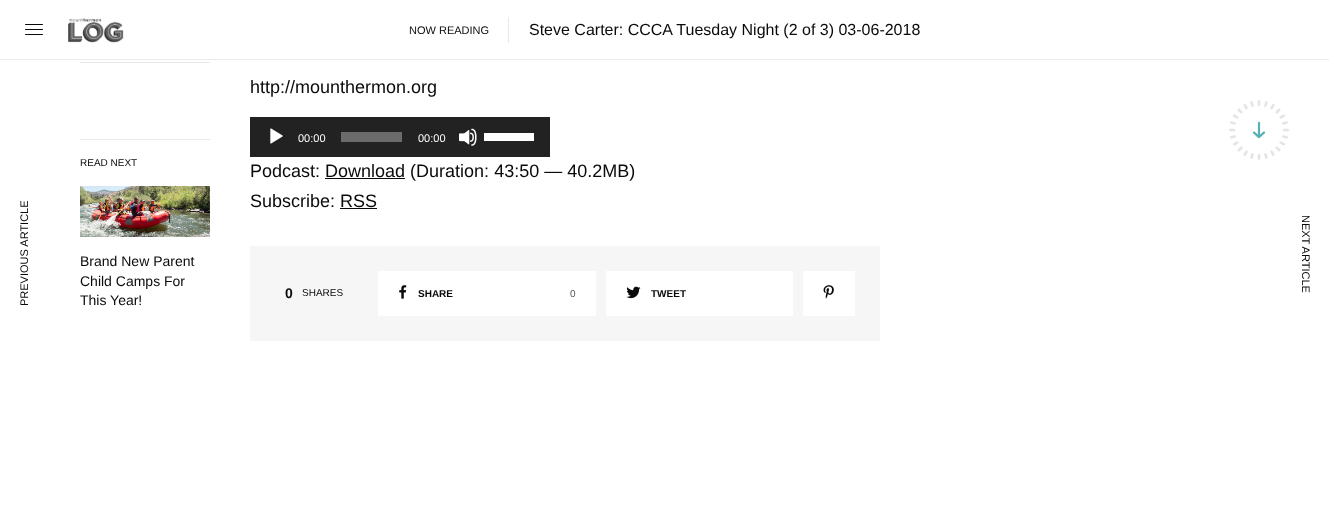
<svg xmlns="http://www.w3.org/2000/svg" width="1329" height="505">
	<rect width="100%" height="100%" fill="#FFFFFF" />
	<rect x="25" y="24" width="18" height="1" rx="0.5" fill="#0A0A0A" />
	<rect x="25" y="29" width="18" height="1" rx="0.5" fill="#0A0A0A" />
	<rect x="25" y="34" width="18" height="1" rx="0.5" fill="#0A0A0A" />
	<image x="68" y="18" width="56" height="25" href="assets/img1.png" />
	<text x="409" y="34" font-family="Liberation Sans" font-size="11" fill="#0A0A0A">NOW READING</text>
	<rect x="508" y="17" width="1" height="26" fill="#E9E9E9" />
	<text x="529" y="35" font-family="Liberation Sans" font-size="16" fill="#0A0A0A">Steve Carter: CCCA Tuesday Night (2 of 3) 03-06-2018</text>
	<rect x="0" y="59" width="1329" height="1" fill="#EBEBEB" />
	<image x="1229" y="100" width="60" height="60" href="assets/img2.png" />
	<text x="28" y="306" transform="rotate(-90 28 306)" font-family="Liberation Sans" font-size="11" fill="#0A0A0A">PREVIOUS ARTICLE</text>
	<rect x="80" y="62" width="130" height="1" fill="#E9E9E9" />
	<rect x="80" y="139" width="130" height="1" fill="#E9E9E9" />
	<text x="80" y="166" font-family="Liberation Sans" font-size="10" fill="#0A0A0A">READ NEXT</text>
	<image x="80" y="186" width="130" height="51" href="assets/img3.png" />
	<g font-family="Liberation Sans" font-size="14" fill="#0A0A0A">
		<text x="80" y="266">Brand New Parent</text>
		<text x="80" y="286">Child Camps For</text>
		<text x="80" y="305">This Year!</text>
	</g>
	<text x="250" y="93" font-family="Liberation Sans" font-size="18" fill="#0A0A0A">http://mounthermon.org</text>
	<rect x="250" y="117" width="300" height="40" fill="#222222" />
	<image x="270" y="128" width="13" height="16" href="assets/img4.png" />
	<text x="298" y="142" font-family="Liberation Sans" font-size="11" fill="#FFFFFF">00:00</text>
	<rect x="341" y="132" width="61" height="10" fill="#6B6B6B" />
	<text x="418" y="142" font-family="Liberation Sans" font-size="11" fill="#FFFFFF">00:00</text>
	<image x="459" y="128" width="18" height="18" href="assets/img5.png" />
	<rect x="484" y="133" width="50" height="8" fill="#FFFFFF" />
	<text x="250" y="177" font-family="Liberation Sans" font-size="18" fill="#0A0A0A">Podcast: Download (Duration: 43:50 — 40.2MB)</text>
	<rect x="325" y="178" width="80" height="1" fill="#0A0A0A" />
	<text x="250" y="207" font-family="Liberation Sans" font-size="18" fill="#0A0A0A">Subscribe: RSS</text>
	<rect x="340" y="208" width="37" height="1" fill="#0A0A0A" />
	<rect x="250" y="246" width="630" height="95" fill="#F6F6F6" />
	<text x="285" y="298" font-family="Liberation Sans" font-size="14" font-weight="700" fill="#0A0A0A">0</text>
	<text x="302" y="296" font-family="Liberation Sans" font-size="10" fill="#0A0A0A">SHARES</text>
	<rect x="378" y="271" width="218" height="45" fill="#FFFFFF" />
	<image x="399" y="285" width="8" height="14" href="assets/img6.png" />
	<text x="418" y="297" font-family="Liberation Sans" font-size="10" font-weight="700" fill="#0A0A0A">SHARE</text>
	<text x="570" y="297" font-family="Liberation Sans" font-size="10" fill="#545454">0</text>
	<rect x="606" y="271" width="187" height="45" fill="#FFFFFF" />
	<image x="626" y="286" width="15" height="13" href="assets/img7.png" />
	<text x="651" y="297" font-family="Liberation Sans" font-size="10" font-weight="700" fill="#0A0A0A">TWEET</text>
	<rect x="803" y="271" width="52" height="45" fill="#FFFFFF" />
	<image x="823" y="285" width="11" height="14" href="assets/img8.png" />
	<text x="1302" y="215" transform="rotate(90 1302 215)" font-family="Liberation Sans" font-size="11" fill="#0A0A0A">NEXT ARTICLE</text>
</svg>
